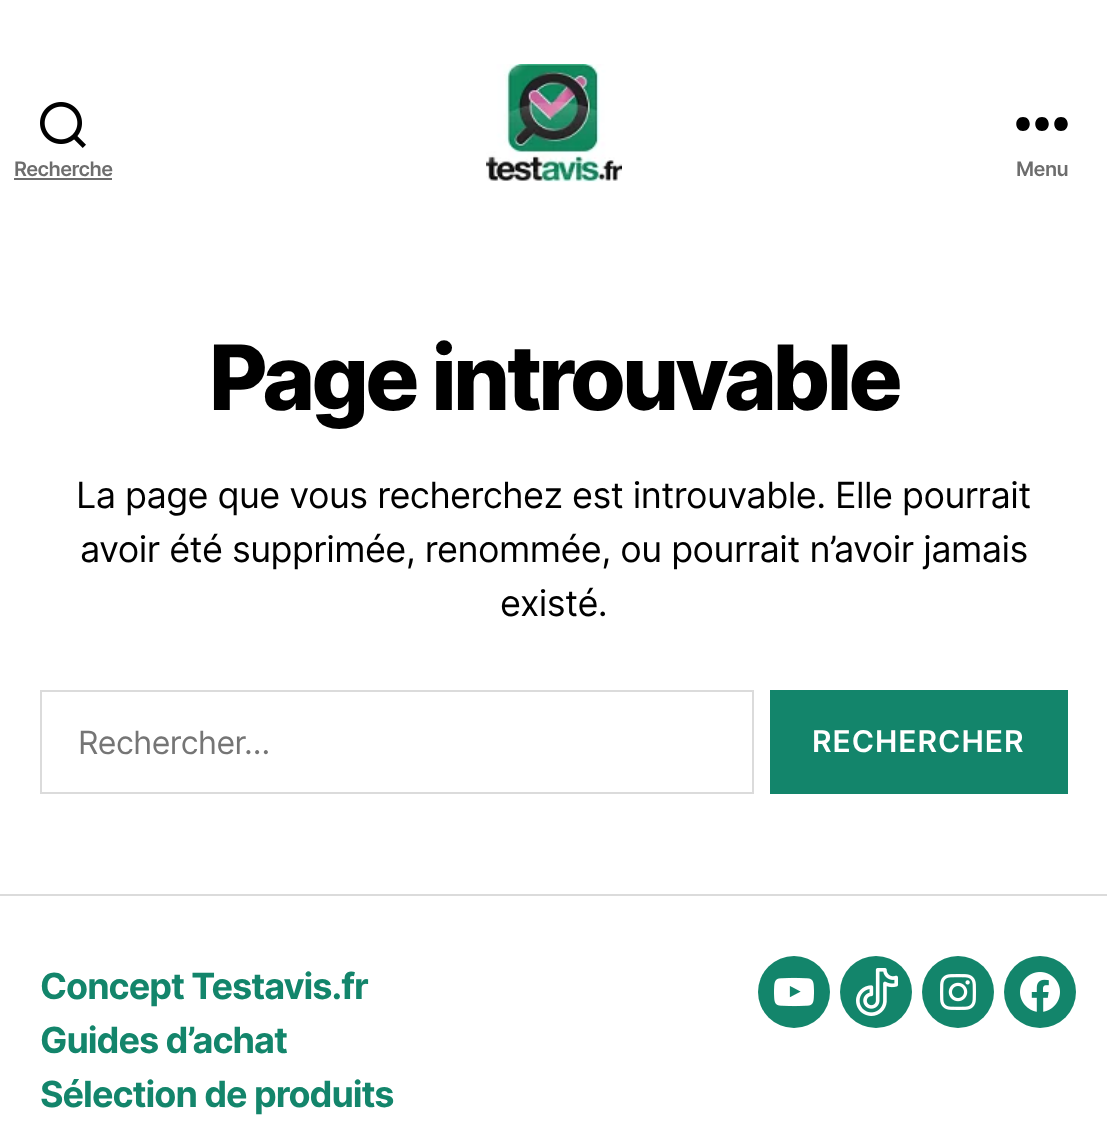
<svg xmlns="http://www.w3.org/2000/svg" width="1107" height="1141">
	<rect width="100%" height="100%" fill="#FFFFFF" />
	<image x="40" y="102" width="46" height="46" href="assets/img1.png" />
	<text x="14" y="176" font-family="Inter" font-size="20" font-weight="600" letter-spacing="-0.55" fill="#6D6D6D">Recherche</text>
	<rect x="14" y="178" width="98" height="2" fill="#6D6D6D" />
	<image x="486" y="64" width="136" height="118" href="assets/img2.png" />
	<path d="M1023 131C1014 131 1014 117 1023 117C1032 117 1032 131 1023 131ZM1042 131C1033 131 1033 117 1042 117C1051 117 1051 131 1042 131ZM1061 131C1052 131 1052 117 1061 117C1070 117 1070 131 1061 131Z" fill="#000000" fill-rule="evenodd" />
	<text x="1016" y="176" font-family="Inter" font-size="20" font-weight="600" letter-spacing="-0.55" fill="#6D6D6D">Menu</text>
	<text x="209" y="410" font-family="Inter" font-size="90" font-weight="800" letter-spacing="-3.75" fill="#000000">Page introuvable</text>
	<g font-family="Inter" font-size="36" letter-spacing="-0.55" fill="#000000">
		<text x="76" y="508">La page que vous recherchez est introuvable. Elle pourrait</text>
		<text x="80" y="562">avoir été supprimée, renommée, ou pourrait n’avoir jamais</text>
		<text x="500" y="616">existé.</text>
	</g>
	<rect x="41" y="691" width="712" height="102" fill="none" stroke="#DBDBDB" stroke-width="2" />
	<text x="78" y="754" font-family="Inter" font-size="32" letter-spacing="-0.5" fill="#757575">Rechercher…</text>
	<rect x="770" y="690" width="298" height="104" fill="#13856B" />
	<text x="812" y="752" font-family="Inter" font-size="30" font-weight="600" letter-spacing="1" fill="#FFFFFF">RECHERCHER</text>
	<rect x="0" y="894" width="1107" height="2" fill="#DBDBDB" />
	<g font-family="Inter" font-size="36" font-weight="700" letter-spacing="-1" fill="#13856B">
		<text x="40" y="999">Concept Testavis.fr</text>
		<text x="40" y="1053">Guides d’achat</text>
		<text x="40" y="1107">Sélection de produits</text>
	</g>
	<circle cx="794" cy="992" r="36" fill="#13856B" />
	<image x="774" y="977" width="40" height="30" href="assets/img3.png" />
	<circle cx="876" cy="992" r="36" fill="#13856B" />
	<image x="856" y="968" width="42" height="48" href="assets/img4.png" />
	<circle cx="958" cy="992" r="36" fill="#13856B" />
	<image x="940" y="974" width="36" height="36" href="assets/img5.png" />
	<circle cx="1040" cy="992" r="36" fill="#13856B" />
	<image x="1020" y="972" width="40" height="40" href="assets/img6.png" />
</svg>
